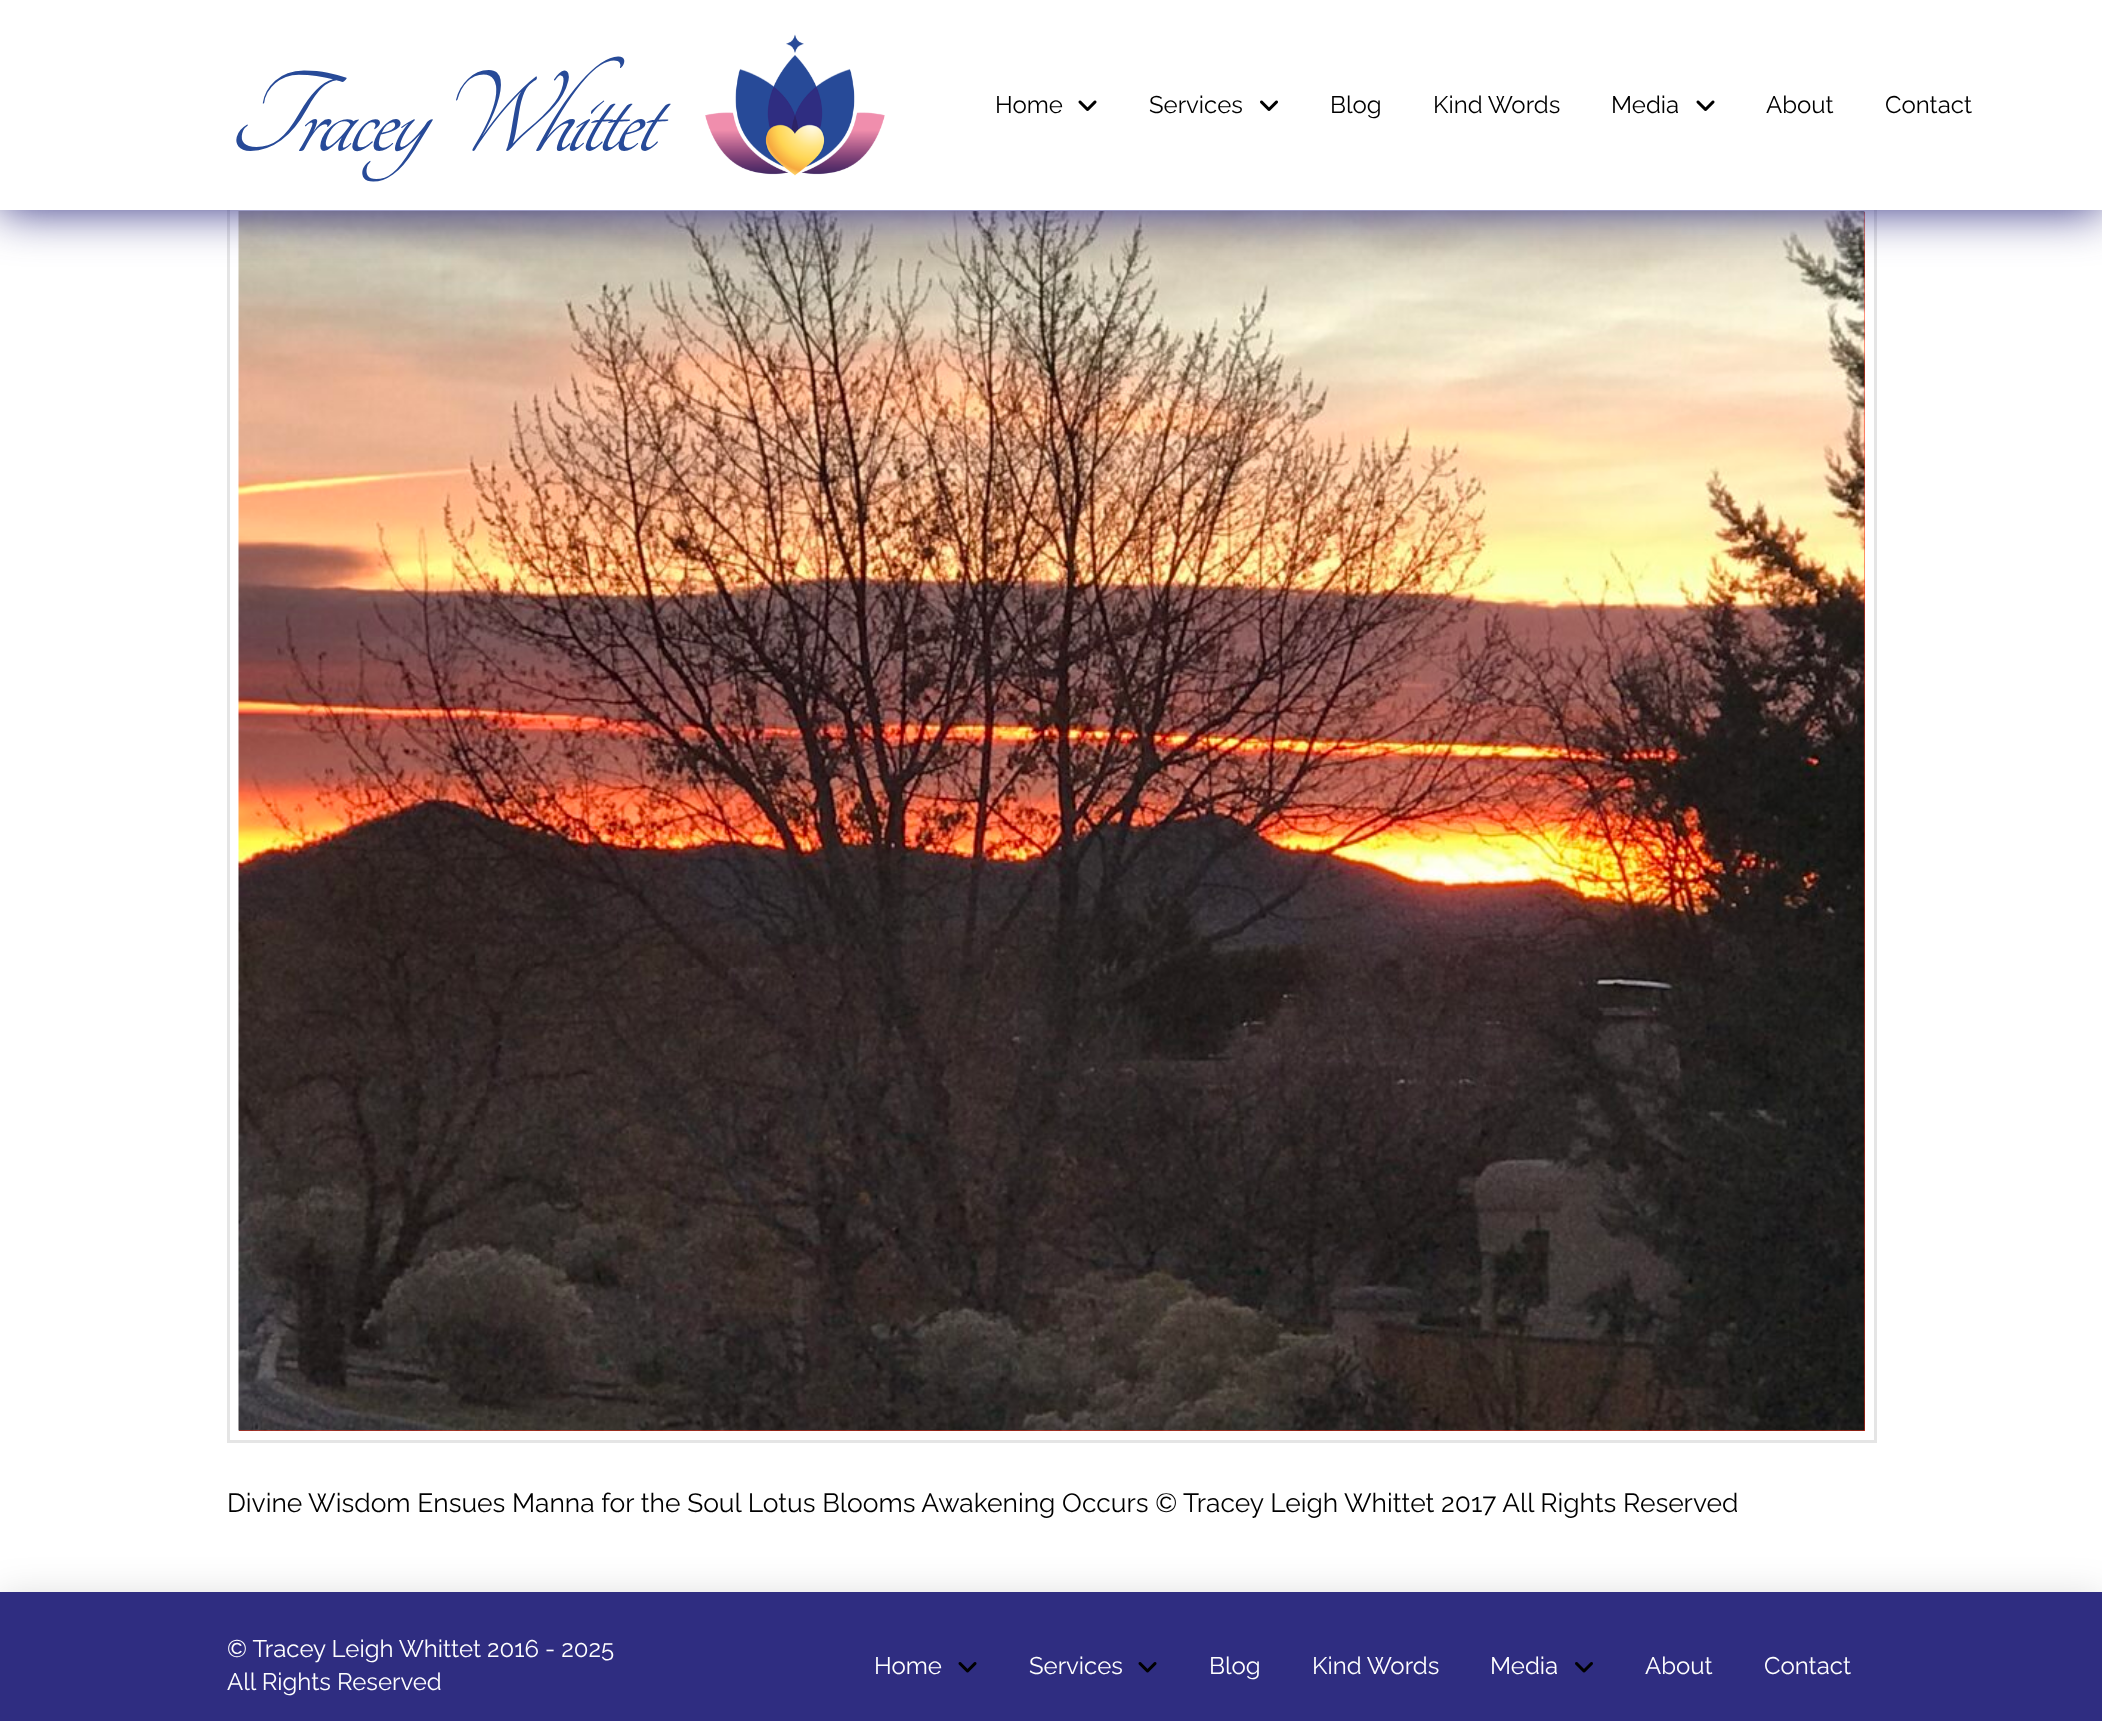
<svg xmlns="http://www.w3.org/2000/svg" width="2102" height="1721">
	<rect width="100%" height="100%" fill="#FFFFFF" />
	<rect x="228.5" y="201.5" width="1647" height="1240" fill="none" stroke="#E5E5E5" stroke-width="3" />
	<rect x="239" y="212" width="1626" height="1219" fill="#FF2A13" />
	<image x="238" y="211" width="1627" height="1220" href="assets/img4.png" />
	<rect x="0" y="0" width="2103" height="210" fill="#2F2D81" filter="blur(24px)" />
	<rect x="0" y="0" width="2102" height="210" fill="#FFFFFF" />
	<text x="227" y="151" font-family="Tangerine" font-size="125" font-style="italic" letter-spacing="-4.4" fill="#274A98">Tracey Whittet</text>
	<image x="705" y="34" width="180" height="142" href="assets/img1.png" />
	<text x="995" y="113" font-family="Raleway" font-size="24" fill="#000000">Home</text>
	<image x="1078" y="100" width="19" height="11" href="assets/img2.png" />
	<text x="1149" y="113" font-family="Raleway" font-size="24" fill="#000000">Services</text>
	<image x="1260" y="100" width="18" height="11" href="assets/img3.png" />
	<g font-family="Raleway" font-size="24" fill="#000000">
		<text x="1330" y="113">Blog</text>
		<text x="1433" y="113">Kind Words</text>
		<text x="1611" y="113">Media</text>
	</g>
	<image x="1696" y="100" width="19" height="11" href="assets/img2.png" />
	<g font-family="Raleway" font-size="24" fill="#000000">
		<text x="1766" y="113">About</text>
		<text x="1885" y="113">Contact</text>
	</g>
	<text x="227" y="1512" font-family="Raleway" font-size="26.4" fill="#000000">Divine Wisdom Ensues Manna for the Soul Lotus Blooms Awakening Occurs © Tracey Leigh Whittet 2017 All Rights Reserved</text>
	<rect x="0" y="1596" width="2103" height="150" fill="#000000" fill-opacity="0.15" filter="blur(19px)" />
	<rect x="0" y="1592" width="2102" height="129" fill="#2F2D81" />
	<g font-family="Raleway" font-size="24" fill="#FFFFFF">
		<text x="227" y="1657">© Tracey Leigh Whittet 2016 - 2025</text>
		<text x="227" y="1690">All Rights Reserved</text>
		<text x="874" y="1674">Home</text>
	</g>
	<image x="958" y="1662" width="19" height="11" href="assets/img5.png" />
	<text x="1029" y="1674" font-family="Raleway" font-size="24" fill="#FFFFFF">Services</text>
	<image x="1138" y="1662" width="19" height="11" href="assets/img5.png" />
	<g font-family="Raleway" font-size="24" fill="#FFFFFF">
		<text x="1209" y="1674">Blog</text>
		<text x="1312" y="1674">Kind Words</text>
		<text x="1490" y="1674">Media</text>
	</g>
	<image x="1575" y="1662" width="18" height="11" href="assets/img6.png" />
	<g font-family="Raleway" font-size="24" fill="#FFFFFF">
		<text x="1645" y="1674">About</text>
		<text x="1764" y="1674">Contact</text>
	</g>
</svg>
